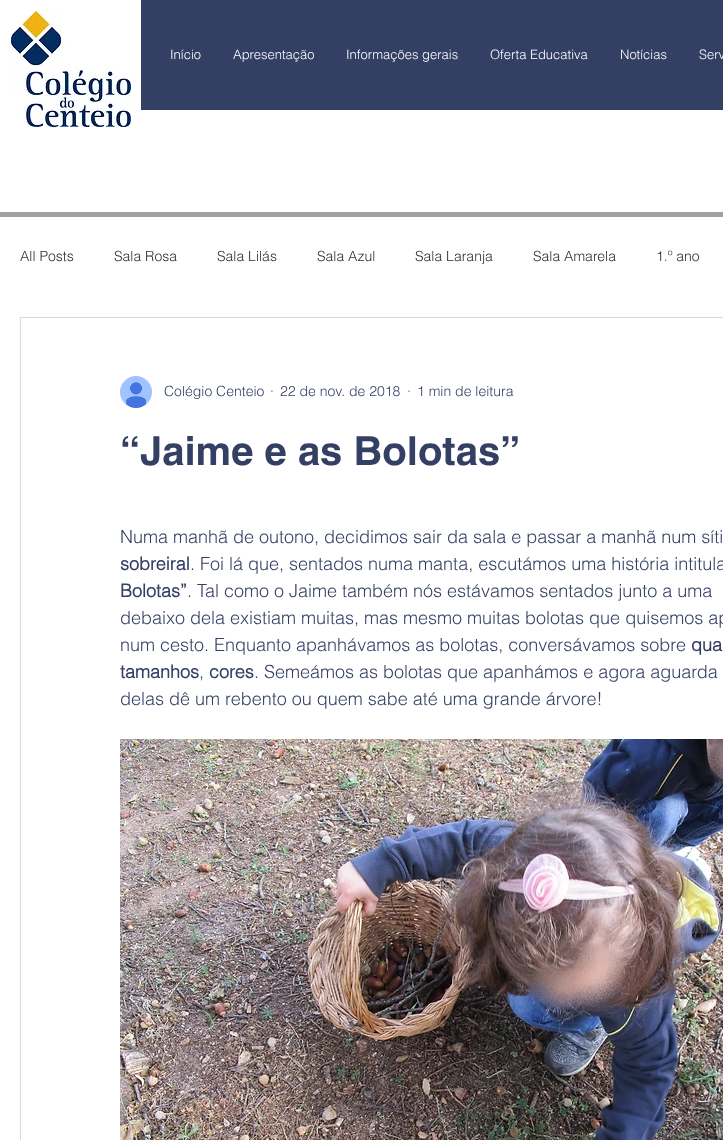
<svg xmlns="http://www.w3.org/2000/svg" width="723" height="1140">
	<rect width="100%" height="100%" fill="#FFFFFF" />
	<image x="11" y="11" width="120" height="116" href="assets/img1.png" />
	<rect x="141" y="0" width="582" height="110" fill="#343F64" />
	<g font-family="helvetica" font-size="13" font-weight="300" fill="#FFFFFF">
		<text x="170" y="59">Início</text>
		<text x="233" y="59">Apresentação</text>
		<text x="346" y="59">Informações gerais</text>
		<text x="490" y="59">Oferta Educativa</text>
		<text x="620" y="59">Notícias</text>
		<text x="699" y="59">Serv</text>
	</g>
	<rect x="0" y="212" width="723" height="5" fill="#A0A09F" />
	<g font-family="helvetica" font-size="14" font-weight="300" fill="#2F2E2E">
		<text x="20" y="261">All Posts</text>
		<text x="114" y="261">Sala Rosa</text>
		<text x="217" y="261">Sala Lilás</text>
		<text x="317" y="261">Sala Azul</text>
		<text x="415" y="261">Sala Laranja</text>
		<text x="533" y="261">Sala Amarela</text>
		<text x="656" y="261">1.º ano</text>
	</g>
	<rect x="20.5" y="317.5" width="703" height="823" fill="none" stroke="#D9D9D9" />
	<image x="120" y="376" width="32" height="32" href="assets/img2.png" />
	<g font-family="helvetica" font-size="14" font-weight="300" fill="#343F64">
		<text x="164" y="396">Colégio Centeio</text>
		<text x="270" y="396">·</text>
		<text x="280" y="396">22 de nov. de 2018</text>
		<text x="407" y="396">·</text>
		<text x="417" y="396">1 min de leitura</text>
	</g>
	<text x="120" y="465" font-family="helvetica" font-size="40" font-weight="700" fill="#343F64">“Jaime e as Bolotas”</text>
	<text x="120" y="543" font-family="helvetica" font-size="18" font-weight="300" fill="#343F64">Numa manhã de outono, decidimos sair da sala e passar a manhã num síti</text>
	<text x="120" y="570" font-family="'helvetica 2'" font-size="18" font-weight="700" fill="#343F64">sobreiral</text>
	<text x="190" y="570" font-family="helvetica" font-size="18" font-weight="300" fill="#343F64">. Foi lá que, sentados numa manta, escutámos uma história intitula</text>
	<text x="120" y="597" font-family="'helvetica 2'" font-size="18" font-weight="700" fill="#343F64">Bolotas”</text>
	<g font-family="helvetica" font-size="18" font-weight="300" fill="#343F64">
		<text x="187" y="597">. Tal como o Jaime também nós estávamos sentados junto a uma</text>
		<text x="120" y="624">debaixo dela existiam muitas, mas mesmo muitas bolotas que quisemos ap</text>
		<text x="120" y="651">num cesto. Enquanto apanhávamos as bolotas, conversávamos sobre</text>
	</g>
	<g font-family="'helvetica 2'" font-size="18" font-weight="700" fill="#343F64">
		<text x="691" y="651">qua</text>
		<text x="120" y="678">tamanhos</text>
	</g>
	<text x="199" y="678" font-family="helvetica" font-size="18" font-weight="300" fill="#343F64">,</text>
	<text x="209" y="678" font-family="'helvetica 2'" font-size="18" font-weight="700" fill="#343F64">cores</text>
	<g font-family="helvetica" font-size="18" font-weight="300" fill="#343F64">
		<text x="254" y="678">. Semeámos as bolotas que apanhámos e agora aguarda</text>
		<text x="120" y="705">delas dê um rebento ou quem sabe até uma grande árvore!</text>
	</g>
	<image x="120" y="739" width="603" height="401" href="assets/img3.png" />
</svg>
